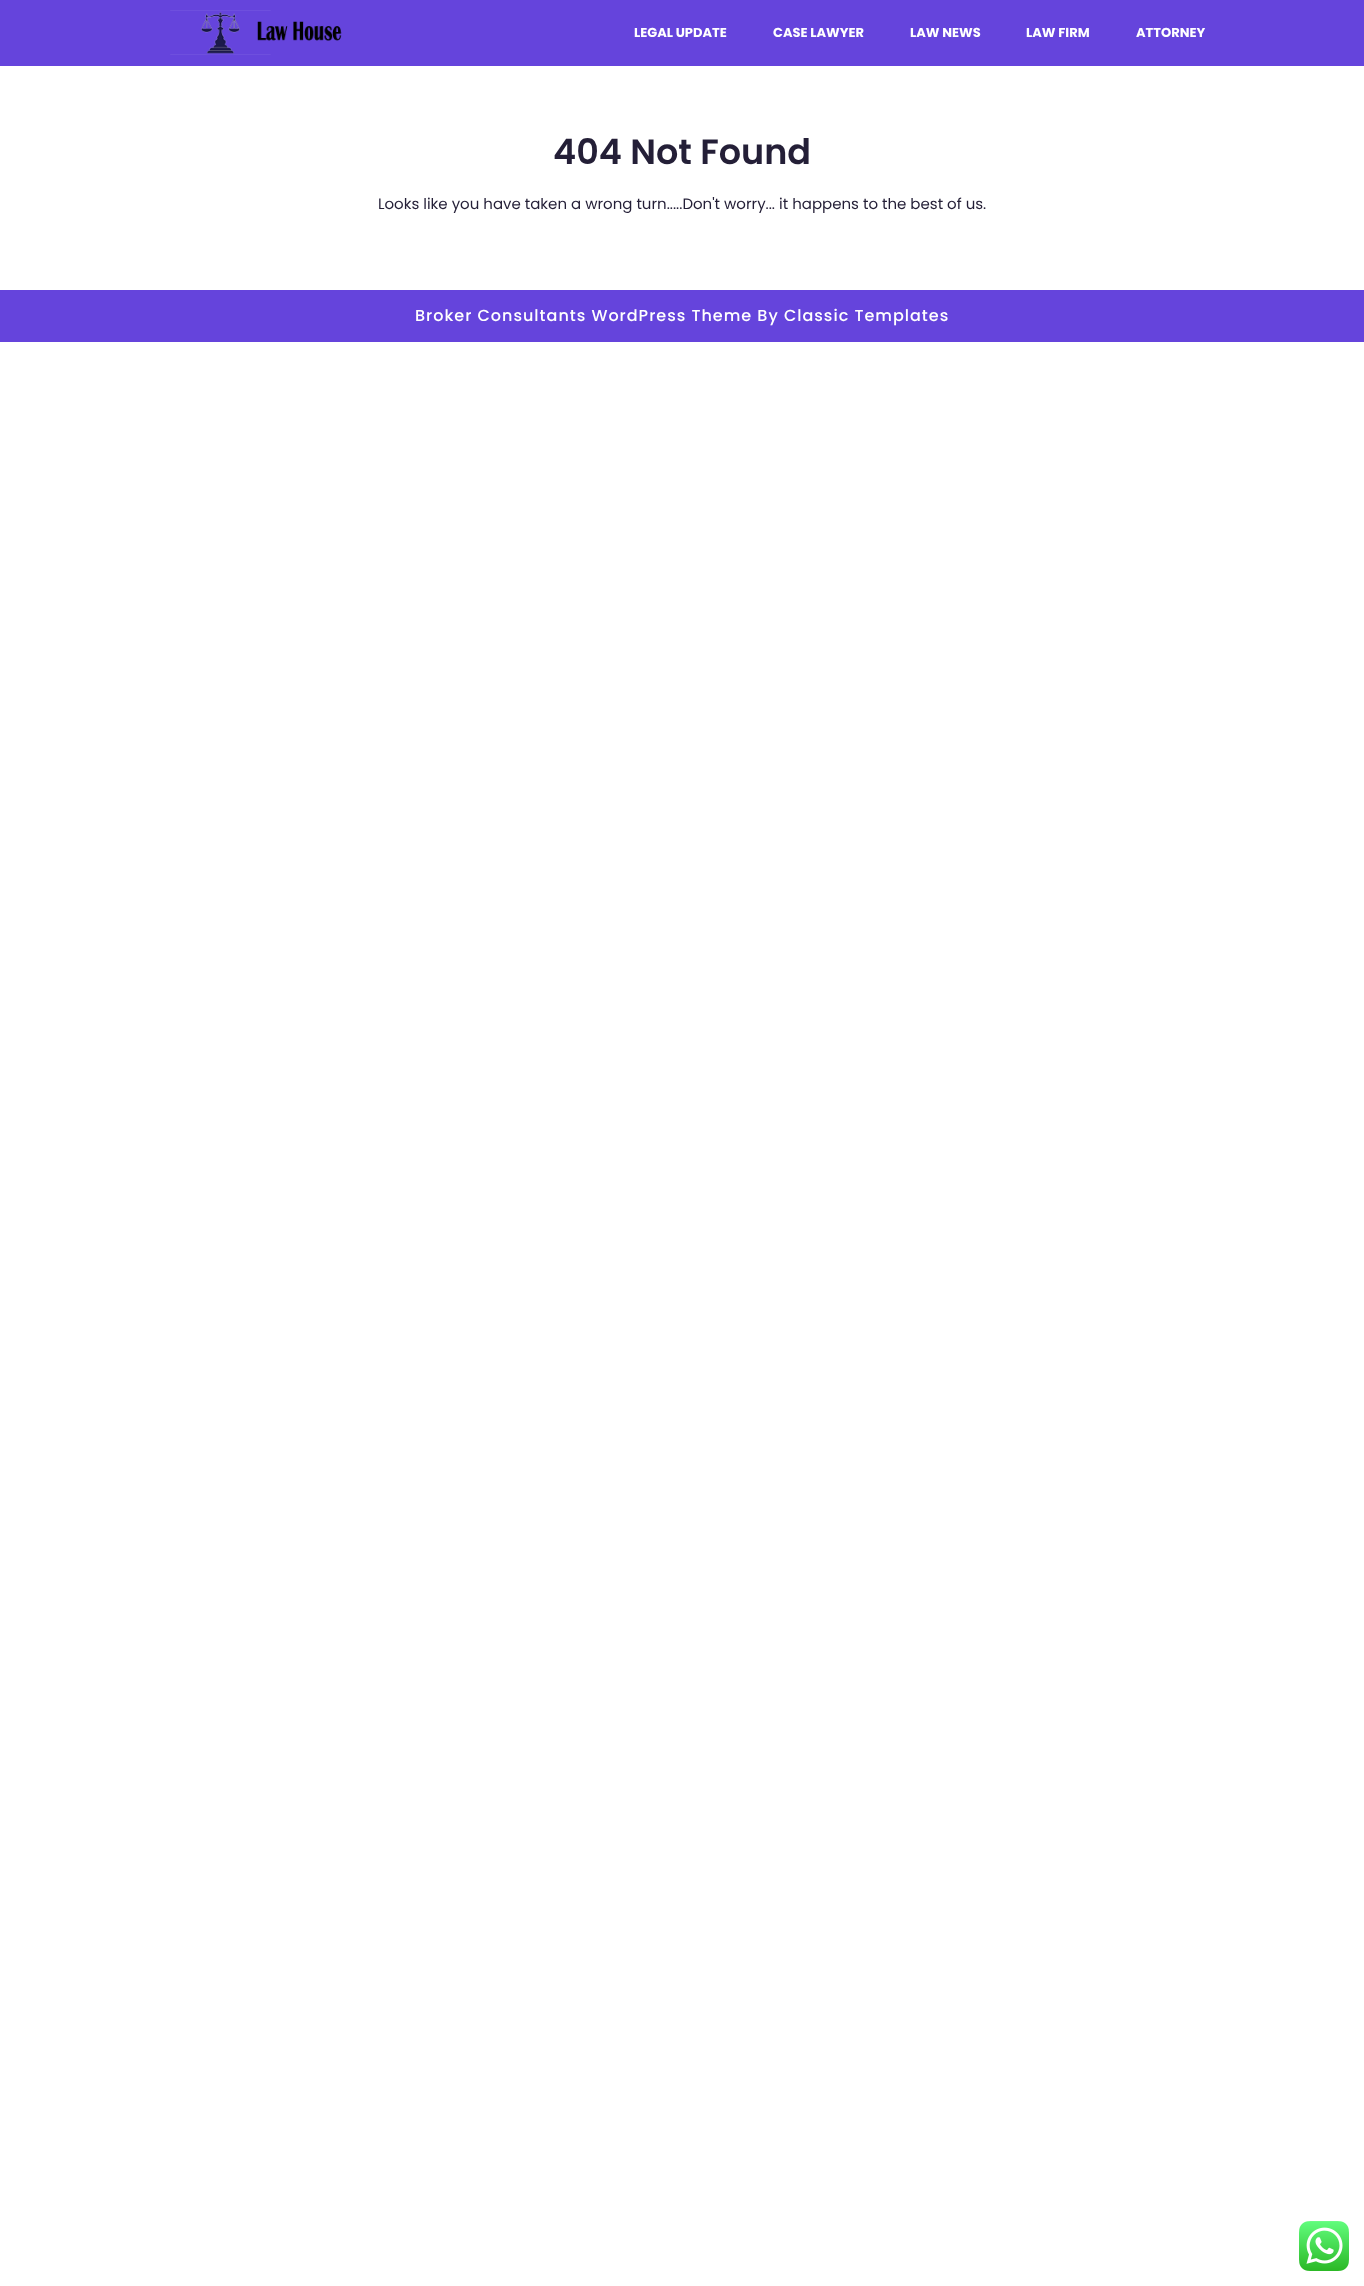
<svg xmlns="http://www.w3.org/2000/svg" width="1364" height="2286">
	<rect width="100%" height="100%" fill="#FFFFFF" />
	<rect x="0" y="0" width="1364" height="66" fill="#6544DC" />
	<image x="170" y="10" width="172" height="45" href="assets/img1.png" />
	<g font-family="Poppins" font-size="13" font-weight="700" fill="#FFFFFF">
		<text x="634" y="37">LEGAL UPDATE</text>
		<text x="773" y="37">CASE LAWYER</text>
		<text x="910" y="37">LAW NEWS</text>
		<text x="1026" y="37">LAW FIRM</text>
		<text x="1136" y="37">ATTORNEY</text>
	</g>
	<text x="553" y="164" font-family="Poppins" font-size="35" font-weight="600" fill="#241F37">404 Not Found</text>
	<text x="378" y="209" font-family="Poppins" font-size="15" fill="#241F37">Looks like you have taken a wrong turn.....Don't worry... it happens to the best of us.</text>
	<rect x="0" y="290" width="1364" height="52" fill="#6544DC" />
	<text x="415" y="321" font-family="Poppins" font-size="16" font-weight="500" letter-spacing="1" fill="#FFFFFF">Broker Consultants WordPress Theme By Classic Templates</text>
	<image x="1299" y="2221" width="50" height="50" href="assets/img2.png" />
</svg>
